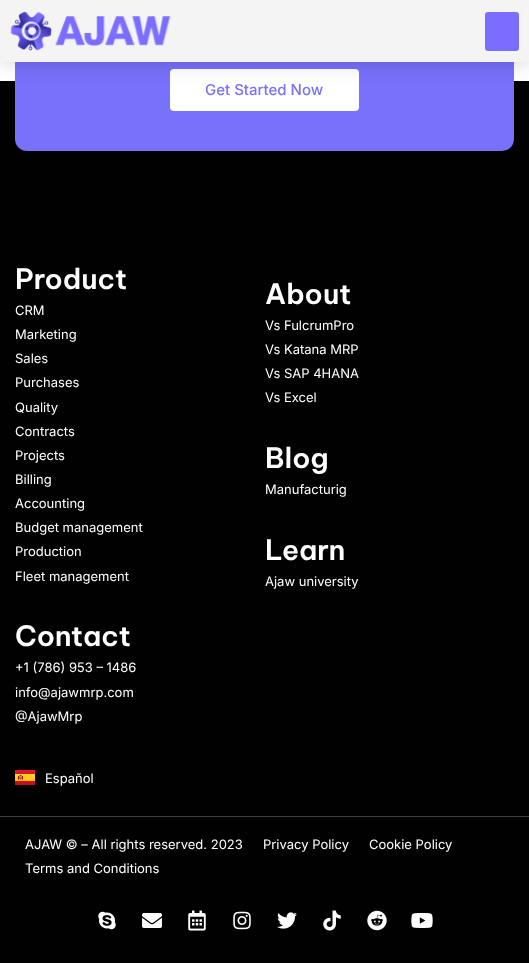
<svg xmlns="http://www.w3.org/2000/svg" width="529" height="963">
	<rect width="100%" height="100%" fill="#FFFFFF" />
	<rect x="0" y="81" width="529" height="735" fill="#010101" />
	<rect x="15" y="-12" width="499" height="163" rx="12" fill="#7871FB" />
	<rect x="170" y="69" width="189" height="42" rx="4" fill="#FFFFFF" />
	<rect x="1" y="-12" width="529" height="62" fill="#000000" fill-opacity="0.5" filter="blur(15px)" />
	<rect x="0" y="0" width="529" height="62" fill="#F4F4F4" />
	<image x="10" y="11" width="161" height="40" href="assets/img1.png" />
	<rect x="485" y="12" width="34" height="39" rx="3" fill="#7B6DFF" />
	<text x="205" y="95" font-family="Inter" font-size="15" font-weight="500" fill="#7871FB">Get Started Now</text>
	<text x="15" y="289" font-family="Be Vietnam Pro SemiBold" font-size="28" font-weight="600" fill="#FFFFFF">Product</text>
	<g font-family="Inter" font-size="13" fill="#FFFFFF">
		<text x="15" y="315">CRM</text>
		<text x="15" y="339">Marketing</text>
		<text x="15" y="363">Sales</text>
		<text x="15" y="387">Purchases</text>
		<text x="15" y="412">Quality</text>
		<text x="15" y="436">Contracts</text>
		<text x="15" y="460">Projects</text>
		<text x="15" y="484">Billing</text>
		<text x="15" y="508">Accounting</text>
		<text x="15" y="532">Budget management</text>
		<text x="15" y="556">Production</text>
		<text x="15" y="581">Fleet management</text>
	</g>
	<text x="265" y="304" font-family="Be Vietnam Pro SemiBold" font-size="28" font-weight="600" fill="#FFFFFF">About</text>
	<g font-family="Inter" font-size="13" fill="#FFFFFF">
		<text x="265" y="330">Vs FulcrumPro</text>
		<text x="265" y="354">Vs Katana MRP</text>
		<text x="265" y="378">Vs SAP 4HANA</text>
		<text x="265" y="402">Vs Excel</text>
	</g>
	<text x="265" y="468" font-family="Be Vietnam Pro SemiBold" font-size="28" font-weight="600" fill="#FFFFFF">Blog</text>
	<text x="265" y="494" font-family="Inter" font-size="13" fill="#FFFFFF">Manufacturig</text>
	<text x="265" y="560" font-family="Be Vietnam Pro SemiBold" font-size="28" font-weight="600" fill="#FFFFFF">Learn</text>
	<text x="265" y="586" font-family="Inter" font-size="13" fill="#FFFFFF">Ajaw university</text>
	<text x="15" y="646" font-family="Be Vietnam Pro SemiBold" font-size="28" font-weight="600" fill="#FFFFFF">Contact</text>
	<g font-family="Inter" font-size="13" fill="#FFFFFF">
		<text x="15" y="672">+1 (786) 953 – 1486</text>
		<text x="15" y="697">info@ajawmrp.com</text>
		<text x="15" y="721">@AjawMrp</text>
	</g>
	<image x="15" y="770" width="20" height="15" href="assets/img2.png" />
	<text x="45" y="783" font-family="Inter" font-size="13" fill="#FFFFFF">Español</text>
	<rect x="0" y="817" width="529" height="146" fill="#010101" />
	<rect x="0" y="816" width="529" height="1" fill="#414141" />
	<g font-family="Inter" font-size="13" fill="#FFFFFF">
		<text x="25" y="849">AJAW © – All rights reserved. 2023</text>
		<text x="263" y="849">Privacy Policy</text>
		<text x="369" y="849">Cookie Policy</text>
		<text x="25" y="873">Terms and Conditions</text>
	</g>
	<image x="98" y="911" width="18" height="19" href="assets/img3.png" />
	<image x="142" y="913" width="20" height="15" href="assets/img4.png" />
	<image x="188" y="910" width="18" height="21" href="assets/img5.png" />
	<image x="233" y="911" width="18" height="19" href="assets/img6.png" />
	<image x="277" y="912" width="20" height="17" href="assets/img7.png" />
	<image x="323" y="910" width="18" height="21" href="assets/img8.png" />
	<image x="367" y="910" width="20" height="21" href="assets/img9.png" />
	<image x="411" y="913" width="22" height="15" href="assets/img10.png" />
</svg>
